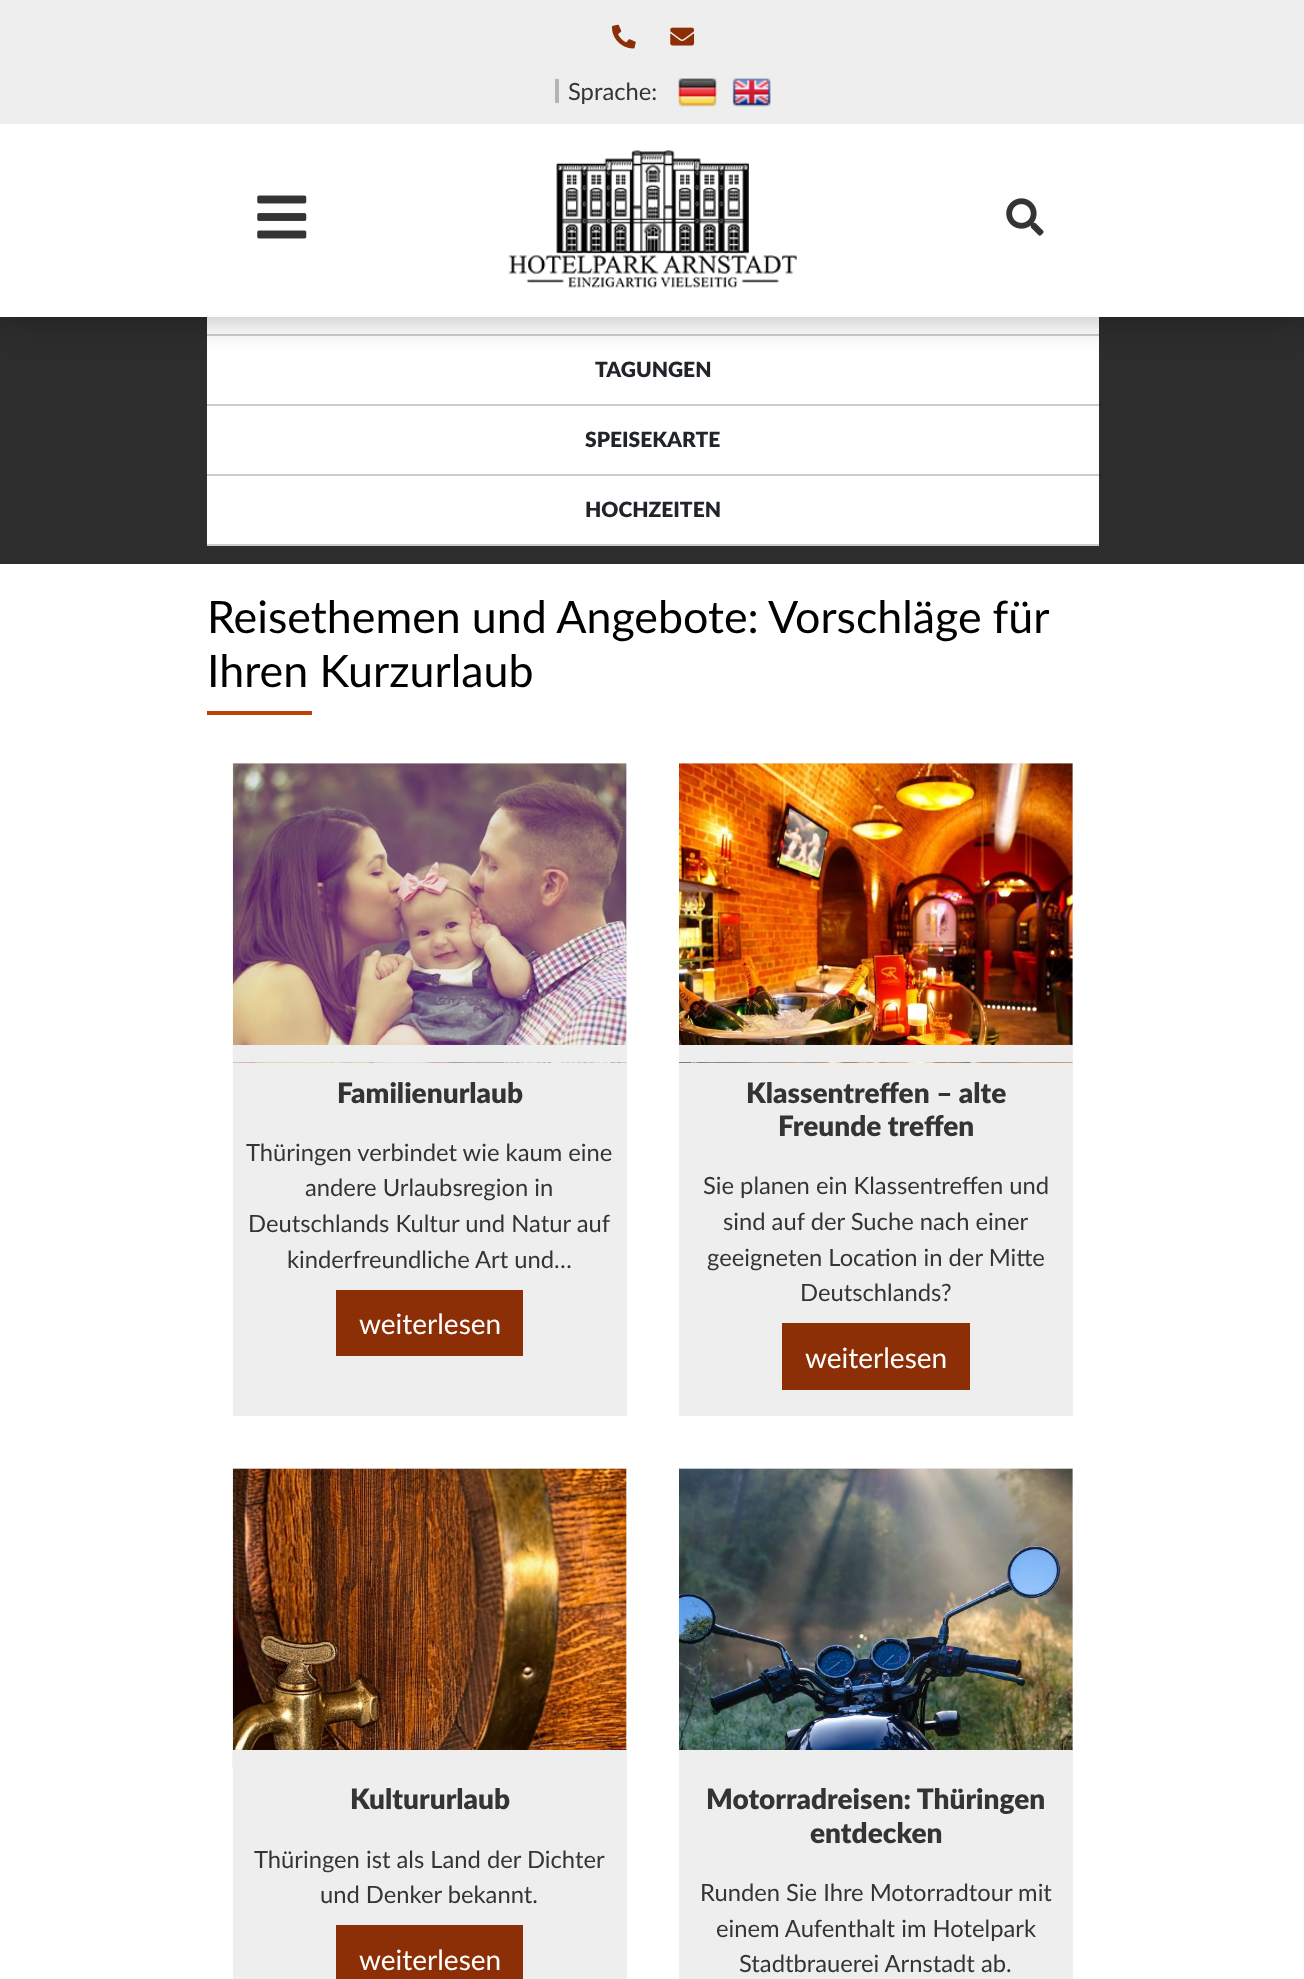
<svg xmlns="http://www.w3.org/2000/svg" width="1304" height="1979">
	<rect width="100%" height="100%" fill="#FFFFFF" />
	<rect x="0" y="317" width="1304" height="247" fill="#2D2D2D" />
	<rect x="207" y="317" width="892" height="17" fill="#FFFFFF" />
	<rect x="207" y="334" width="892" height="2" fill="#CCCCCC" />
	<rect x="207" y="336" width="892" height="68" fill="#FFFFFF" />
	<rect x="0" y="0" width="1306" height="317" fill="#000000" fill-opacity="0.3" filter="blur(17.5px)" />
	<rect x="0" y="124" width="1304" height="193" fill="#FFFFFF" />
	<rect x="0" y="0" width="1304" height="124" fill="#EEEEEE" />
	<image x="612" y="24" width="24" height="25" href="assets/img1.png" />
	<image x="670" y="27" width="25" height="19" href="assets/img2.png" />
	<rect x="555" y="79" width="4" height="24" fill="#B4B4B4" />
	<text x="568" y="100" font-family="Lato" font-size="23.75" fill="#343434">Sprache:</text>
	<image x="678" y="78" width="39" height="29" href="assets/img3.png" />
	<image x="732" y="78" width="39" height="29" href="assets/img4.png" />
	<image x="257" y="195" width="50" height="44" href="assets/img5.png" />
	<image x="508" y="150" width="289" height="138" href="assets/img6.png" />
	<image x="1006" y="198" width="38" height="38" href="assets/img7.png" />
	<rect x="207" y="404" width="892" height="2" fill="#CCCCCC" />
	<text x="595" y="377" font-family="Lato" font-size="21" font-weight="900" fill="#212529">TAGUNGEN</text>
	<rect x="207" y="406" width="892" height="68" fill="#FFFFFF" />
	<rect x="207" y="474" width="892" height="2" fill="#CCCCCC" />
	<text x="585" y="447" font-family="Lato" font-size="21" font-weight="900" fill="#212529">SPEISEKARTE</text>
	<rect x="207" y="476" width="892" height="68" fill="#FFFFFF" />
	<rect x="207" y="544" width="892" height="2" fill="#CCCCCC" />
	<text x="585" y="517" font-family="Lato" font-size="21" font-weight="900" fill="#212529">HOCHZEITEN</text>
	<g font-family="Lato" font-size="44.75" fill="#010101">
		<text x="207" y="633" word-spacing="-0.5">Reisethemen und Angebote: Vorschläge für</text>
		<text x="207" y="687">Ihren Kurzurlaub</text>
	</g>
	<rect x="207" y="711" width="105" height="4" fill="#BE3F08" />
	<rect x="233" y="763" width="394" height="653" fill="#EEEEEE" />
	<image x="232" y="763" width="395" height="300" href="assets/img8.png" />
	<rect x="233" y="1045" width="394" height="17" fill="#EEEEEE" />
	<text x="337" y="1103" font-family="Lato" font-size="28" font-weight="900" fill="#343434">Familienurlaub</text>
	<g font-family="Lato" font-size="23.75" fill="#343434">
		<text x="246" y="1161">Thüringen verbindet wie kaum eine</text>
		<text x="305" y="1196">andere Urlaubsregion in</text>
		<text x="248" y="1232">Deutschlands Kultur und Natur auf</text>
		<text x="287" y="1268">kinderfreundliche Art und…</text>
	</g>
	<rect x="336" y="1290" width="187" height="66" fill="#8D2F06" />
	<text x="359" y="1334" font-family="Lato" font-size="28" fill="#FFFFFF">weiterlesen</text>
	<rect x="679" y="763" width="394" height="653" fill="#EEEEEE" />
	<image x="679" y="763" width="394" height="300" href="assets/img9.png" />
	<rect x="679" y="1045" width="394" height="17" fill="#EEEEEE" />
	<g font-family="Lato" font-size="28" font-weight="900" fill="#343434">
		<text x="746" y="1103">Klassentreffen – alte</text>
		<text x="778" y="1136">Freunde treffen</text>
	</g>
	<g font-family="Lato" font-size="23.75" fill="#343434">
		<text x="703" y="1194">Sie planen ein Klassentreffen und</text>
		<text x="723" y="1230">sind auf der Suche nach einer</text>
		<text x="707" y="1266">geeigneten Location in der Mitte</text>
		<text x="800" y="1301">Deutschlands?</text>
	</g>
	<rect x="782" y="1323" width="188" height="67" fill="#8D2F06" />
	<text x="805" y="1368" font-family="Lato" font-size="28" fill="#FFFFFF">weiterlesen</text>
	<rect x="233" y="1468" width="394" height="511" fill="#EEEEEE" />
	<image x="232" y="1468" width="395" height="300" href="assets/img10.png" />
	<rect x="233" y="1750" width="394" height="18" fill="#EEEEEE" />
	<text x="350" y="1809" font-family="Lato" font-size="28" font-weight="900" fill="#343434">Kultururlaub</text>
	<g font-family="Lato" font-size="23.75" fill="#343434">
		<text x="254" y="1868">Thüringen ist als Land der Dichter</text>
		<text x="320" y="1903">und Denker bekannt.</text>
	</g>
	<rect x="336" y="1925" width="187" height="54" fill="#8D2F06" />
	<text x="359" y="1970" font-family="Lato" font-size="28" fill="#FFFFFF">weiterlesen</text>
	<rect x="679" y="1468" width="394" height="511" fill="#EEEEEE" />
	<image x="679" y="1468" width="394" height="282" href="assets/img11.png" />
	<g font-family="Lato" font-size="28" font-weight="900" fill="#343434">
		<text x="706" y="1809">Motorradreisen: Thüringen</text>
		<text x="810" y="1843">entdecken</text>
	</g>
	<g font-family="Lato" font-size="23.75" fill="#343434">
		<text x="700" y="1901">Runden Sie Ihre Motorradtour mit</text>
		<text x="716" y="1937">einem Aufenthalt im Hotelpark</text>
		<text x="739" y="1972">Stadtbrauerei Arnstadt ab.</text>
	</g>
</svg>
